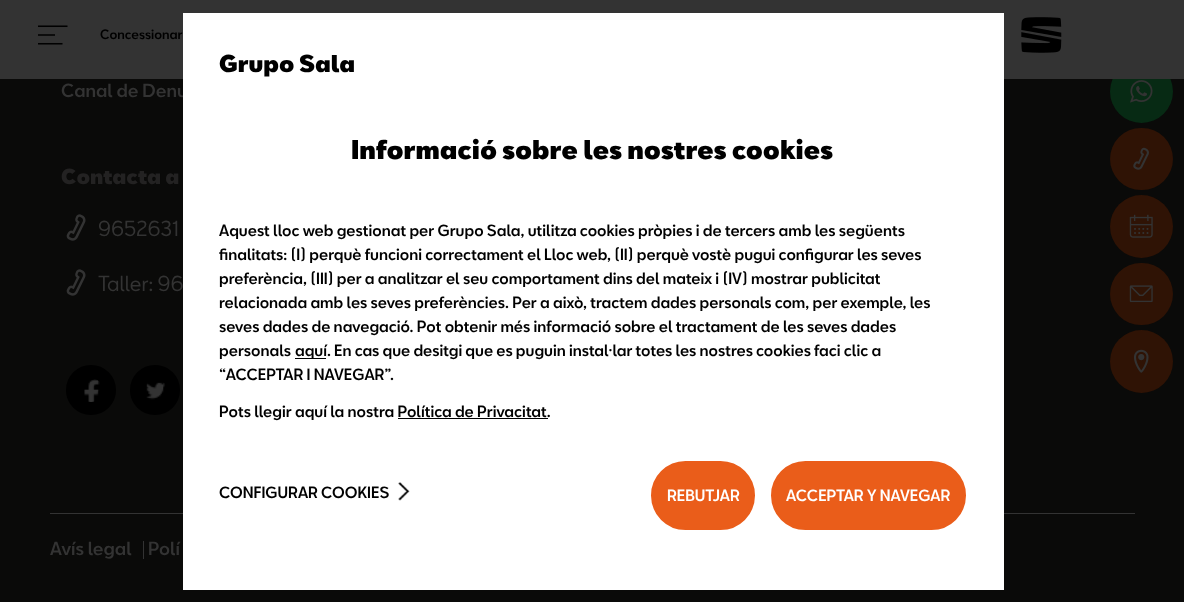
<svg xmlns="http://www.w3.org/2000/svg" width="1184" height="602">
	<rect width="100%" height="100%" fill="#0A0A09" />
	<circle cx="1141.5" cy="91.5" r="31.5" fill="#072A14" />
	<rect x="0" y="0" width="1184" height="79" fill="#333333" />
	<image x="38" y="25" width="30" height="20" href="assets/img1.png" />
	<text x="100" y="39" font-family="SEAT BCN" font-size="12.5" font-weight="500" fill="#000000">Concessionar</text>
	<image x="1021" y="17" width="41" height="36" href="assets/img2.png" />
	<text x="61" y="97" font-family="SEAT BCN" font-size="17.5" font-weight="500" fill="#333333">Canal de Denu</text>
	<text x="61" y="184" font-family="SEAT BCN" font-size="20" font-weight="900" fill="#232222">Contacta a</text>
	<image x="66" y="214" width="20" height="27" href="assets/img3.png" />
	<text x="98" y="236" font-family="SEAT BCN" font-size="20" fill="#333333">9652631</text>
	<image x="66" y="269" width="20" height="27" href="assets/img3.png" />
	<text x="98" y="291" font-family="SEAT BCN" font-size="20" fill="#333333">Taller: 96</text>
	<image x="79" y="378" width="24" height="24" href="assets/img4.png" />
	<circle cx="91" cy="390" r="18.5" fill="none" stroke="#000000" stroke-width="13" />
	<image x="143" y="378" width="24" height="24" href="assets/img5.png" />
	<circle cx="155" cy="390" r="18.5" fill="none" stroke="#000000" stroke-width="13" />
	<rect x="50" y="513" width="1085" height="1" fill="#333333" />
	<text x="50" y="555" font-family="SEAT BCN" font-size="17.5" font-weight="500" fill="#333333">Avís legal</text>
	<rect x="143" y="541" width="1" height="18" fill="#333333" />
	<text x="148" y="555" font-family="SEAT BCN" font-size="17.5" font-weight="500" fill="#333333">Polí</text>
	<rect x="183" y="13" width="821" height="577" fill="#FFFFFF" />
	<text x="219" y="72" font-family="SEAT BCN" font-size="22.5" font-weight="900" fill="#000000">Grupo Sala</text>
	<text x="351" y="159" font-family="SEAT BCN" font-size="25" font-weight="900" fill="#000000">Informació sobre les nostres cookies</text>
	<g font-family="SEAT BCN" font-size="15" font-weight="500" fill="#000000">
		<text x="219" y="236">Aquest lloc web gestionat per Grupo Sala, utilitza cookies pròpies i de tercers amb les següents</text>
		<text x="219" y="260">finalitats: (I) perquè funcioni correctament el Lloc web, (II) perquè vostè pugui configurar les seves</text>
		<text x="219" y="284">preferència, (III) per a analitzar el seu comportament dins del mateix i (IV) mostrar publicitat</text>
		<text x="219" y="308">relacionada amb les seves preferències. Per a això, tractem dades personals com, per exemple, les</text>
		<text x="219" y="332">seves dades de navegació. Pot obtenir més informació sobre el tractament de les seves dades</text>
		<text x="219" y="356">personals</text>
	</g>
	<rect x="295" y="358" width="31" height="1" fill="#000000" />
	<g font-family="SEAT BCN" font-size="15" font-weight="500" fill="#000000">
		<text x="295" y="356">aquí</text>
		<text x="327" y="356" word-spacing="-0.1">. En cas que desitgi que es puguin instal·lar totes les nostres cookies faci clic a</text>
		<text x="219" y="380">“ACCEPTAR I NAVEGAR”.</text>
		<text x="219" y="417">Pots llegir aquí la nostra Política de Privacitat.</text>
	</g>
	<rect x="398" y="418" width="150" height="1" fill="#000000" />
	<text x="219" y="498" font-family="SEAT BCN" font-size="15" font-weight="500" fill="#000000">CONFIGURAR COOKIES</text>
	<image x="398" y="482" width="12" height="19" href="assets/img6.png" />
	<rect x="652.5" y="462.5" width="101" height="66" rx="33" fill="#EA5D1A" stroke="#EA5D1A" stroke-width="3" />
	<text x="667" y="501" font-family="SEAT BCN" font-size="15" font-weight="500" fill="#FFFFFF">REBUTJAR</text>
	<rect x="772.5" y="462.5" width="192" height="66" rx="33" fill="#EA5D1A" stroke="#EA5D1A" stroke-width="3" />
	<text x="786" y="501" font-family="SEAT BCN" font-size="15" font-weight="500" fill="#FFFFFF">ACCEPTAR Y NAVEGAR</text>
	<image x="1130" y="80" width="23" height="23" href="assets/img7.png" />
	<rect x="1110" y="128" width="63" height="62" rx="31" fill="#2F1305" />
	<image x="1133" y="147" width="16" height="23" href="assets/img8.png" />
	<circle cx="1141.5" cy="226.5" r="31.5" fill="#2F1305" />
	<image x="1129" y="214" width="24" height="24" href="assets/img9.png" />
	<rect x="1110" y="263" width="63" height="62" rx="31" fill="#2F1305" />
	<image x="1129" y="285" width="24" height="18" href="assets/img10.png" />
	<circle cx="1141.5" cy="361.5" r="31.5" fill="#2F1305" />
	<image x="1134" y="349" width="15" height="24" href="assets/img11.png" />
</svg>
